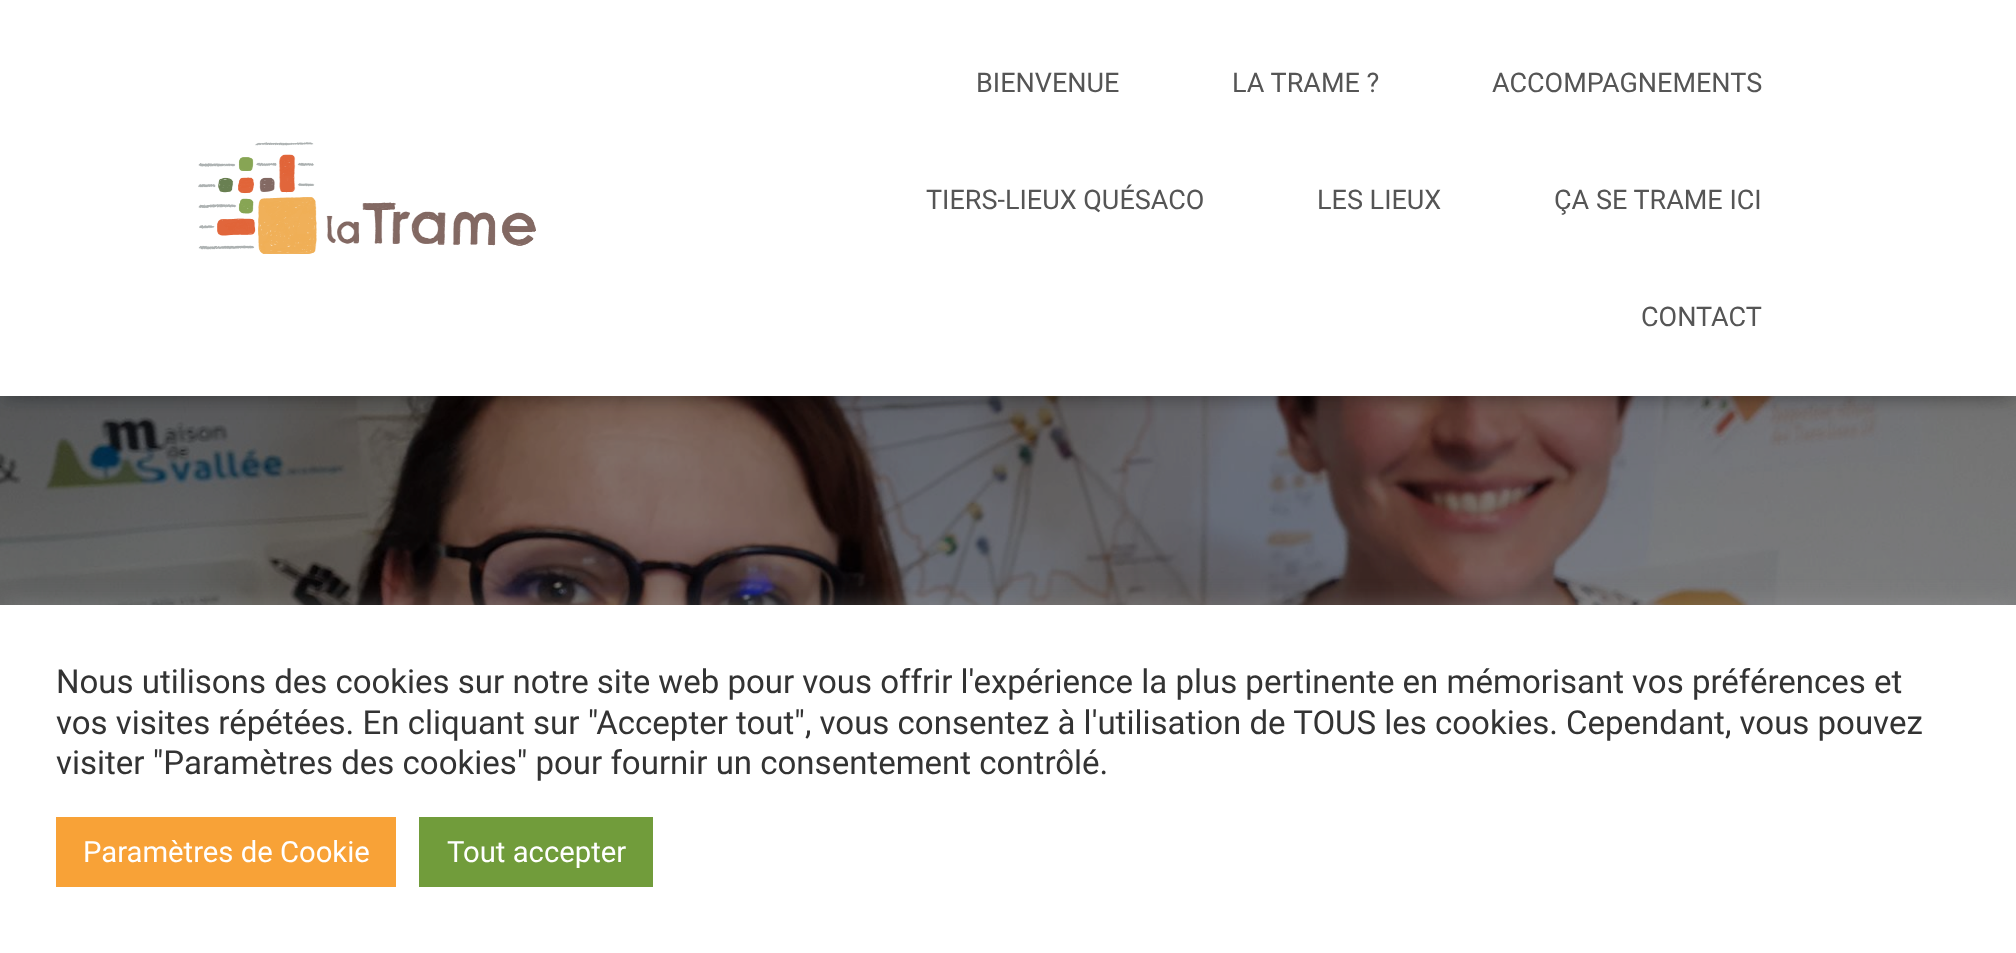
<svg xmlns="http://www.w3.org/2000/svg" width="2016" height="953">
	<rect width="100%" height="100%" fill="#FFFFFF" />
	<image x="0" y="396" width="2016" height="209" href="assets/img2.png" />
	<rect x="5" y="14" width="2007" height="387" fill="#000000" fill-opacity="0.1" filter="blur(5.5px)" />
	<rect x="0" y="2" width="2016" height="396" fill="#000000" fill-opacity="0.12" filter="blur(11px)" />
	<rect x="14" y="16" width="1989" height="369" fill="#000000" fill-opacity="0.42" filter="blur(11px)" />
	<rect x="0" y="0" width="2016" height="396" fill="#FFFFFF" />
	<image x="198" y="142" width="338" height="112" href="assets/img1.png" />
	<g font-family="Roboto" font-size="27" fill="#555555">
		<text x="976" y="92">BIENVENUE</text>
		<text x="1232" y="92">LA TRAME ?</text>
		<text x="1492" y="92">ACCOMPAGNEMENTS</text>
		<text x="926" y="209">TIERS-LIEUX QUÉSACO</text>
		<text x="1317" y="209">LES LIEUX</text>
		<text x="1554" y="209">ÇA SE TRAME ICI</text>
		<text x="1641" y="326">CONTACT</text>
	</g>
	<rect x="0" y="603" width="2016" height="349" fill="#ACABAB" fill-opacity="0.3" filter="blur(11px)" />
	<rect x="0" y="605" width="2016" height="348" fill="#FFFFFF" />
	<g font-family="Roboto" font-size="33" fill="#333333">
		<text x="56" y="693">Nous utilisons des cookies sur notre site web pour vous offrir l'expérience la plus pertinente en mémorisant vos préférences et</text>
		<text x="56" y="734">vos visites répétées. En cliquant sur "Accepter tout", vous consentez à l'utilisation de TOUS les cookies. Cependant, vous pouvez</text>
		<text x="56" y="774">visiter "Paramètres des cookies" pour fournir un consentement contrôlé.</text>
	</g>
	<rect x="56" y="817" width="340" height="70" fill="#F8A237" />
	<text x="83" y="862" font-family="Roboto" font-size="29.25" fill="#FFFFFF">Paramètres de Cookie</text>
	<rect x="419" y="817" width="234" height="70" fill="#719C3B" />
	<text x="447" y="862" font-family="Roboto" font-size="29.25" fill="#FFFFFF">Tout accepter</text>
</svg>
